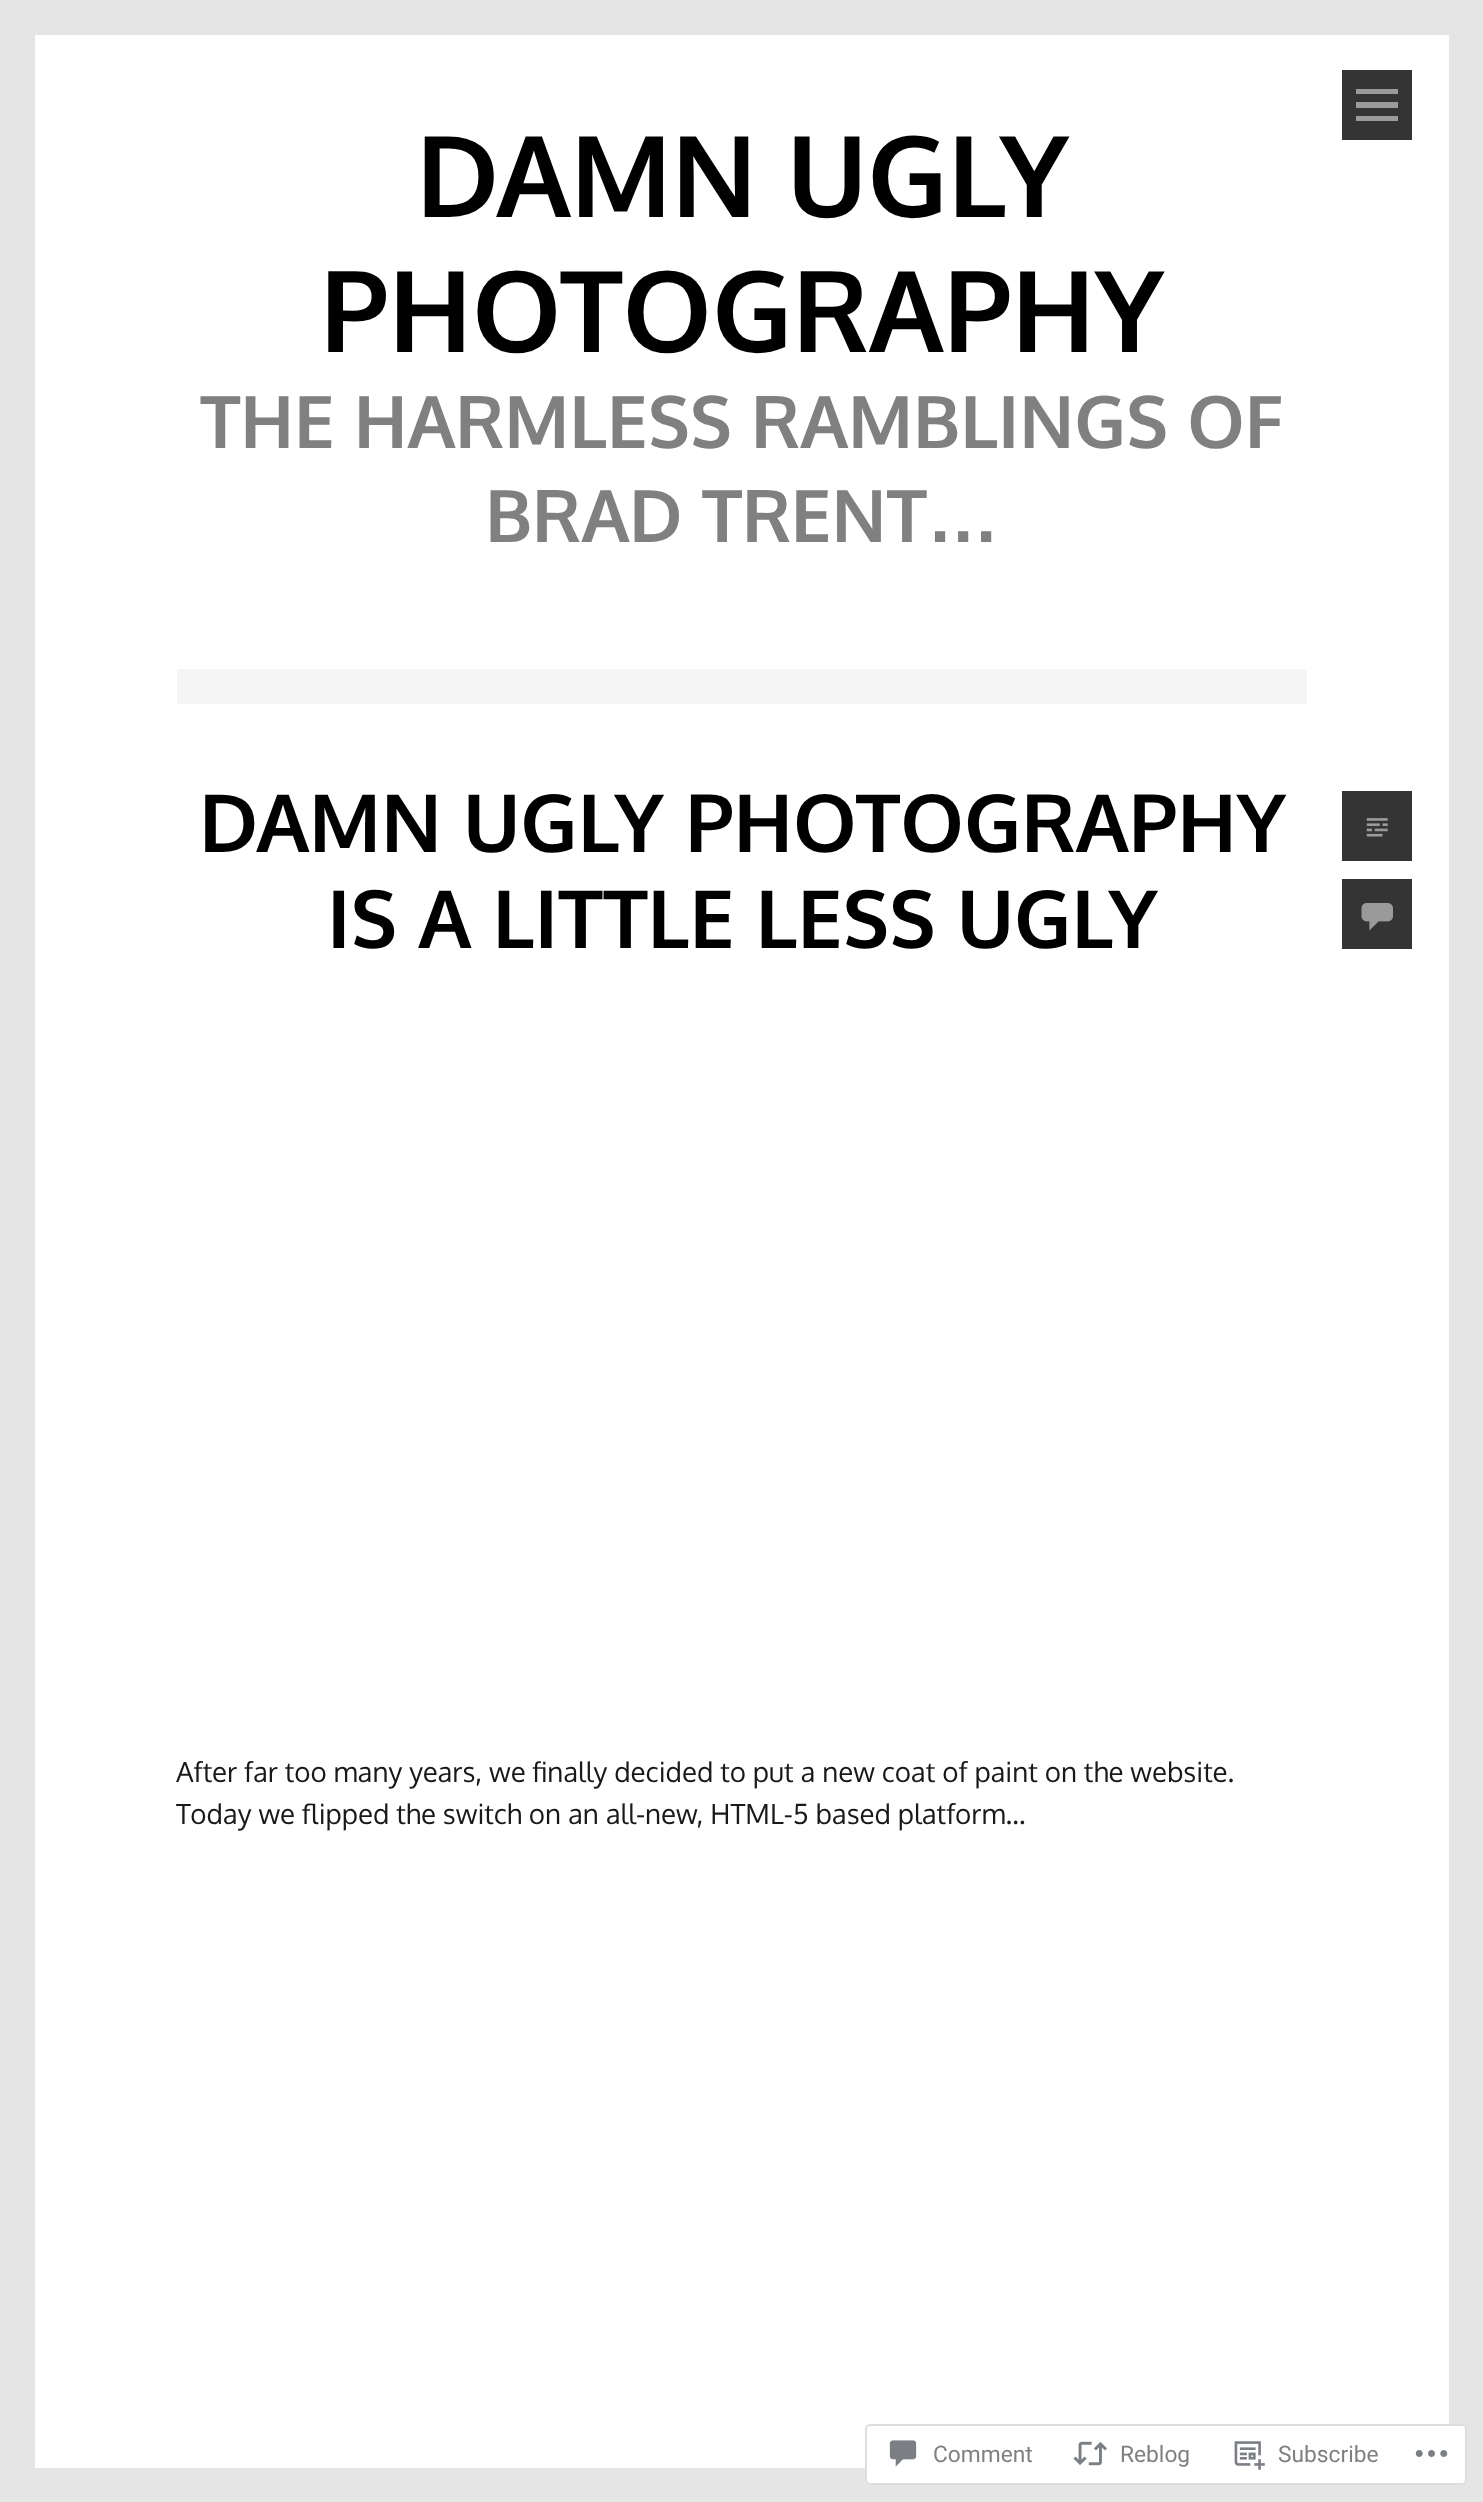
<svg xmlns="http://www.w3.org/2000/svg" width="1483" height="2502">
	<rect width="100%" height="100%" fill="#FFFFFF" />
	<rect x="1449" y="35" width="34" height="2433" fill="#E5E5E5" />
	<rect x="0" y="35" width="35" height="2433" fill="#E5E5E5" />
	<rect x="0" y="0" width="1483" height="35" fill="#E5E5E5" />
	<rect x="177" y="669" width="1130" height="35" fill="#F5F5F5" />
	<rect x="1342" y="70" width="70" height="70" fill="#343434" />
	<path d="M1356 121V116H1398V121ZM1356 89H1398V94H1356ZM1356 108V102H1398V108Z" fill="#9A9A9A" />
	<g font-family="Oxygen" font-size="112.5" font-weight="700" fill="#000000">
		<text x="416" y="217">DAMN UGLY</text>
		<text x="320" y="352">PHOTOGRAPHY</text>
	</g>
	<g font-family="Oxygen" font-size="72.4" font-weight="700" fill="#808080">
		<text x="200" y="448">THE HARMLESS RAMBLINGS OF</text>
		<text x="485" y="542">BRAD TRENT</text>
	</g>
	<text x="927" y="542" font-family="Liberation Sans" font-size="72.4" font-weight="700" fill="#808080">…</text>
	<g font-family="Oxygen" font-size="80.1" font-weight="700" fill="#000000">
		<text x="199" y="852">DAMN UGLY PHOTOGRAPHY</text>
		<text x="327" y="948">IS A LITTLE LESS UGLY</text>
	</g>
	<rect x="1342" y="791" width="70" height="70" fill="#343434" />
	<image x="1366" y="818" width="22" height="19" href="assets/img1.png" />
	<rect x="1342" y="879" width="70" height="70" fill="#343434" />
	<image x="1361" y="903" width="32" height="28" href="assets/img2.png" />
	<g font-family="Oxygen" font-size="27.7" fill="#191919">
		<text x="176" y="1782">After far too many years, we finally decided to put a new coat of paint on the website.</text>
		<text x="176" y="1824">Today we flipped the switch on an all-new, HTML-5 based platform…</text>
	</g>
	<rect x="0" y="2468" width="1483" height="34" fill="#E5E5E5" />
	<rect x="865" y="2424" width="602" height="61" rx="5" fill="#FFFFFF" fill-opacity="0.98" />
	<rect x="866" y="2425" width="600" height="59" rx="4" fill="none" stroke="#DCDCDE" stroke-opacity="0.98" stroke-width="2" />
	<image x="889" y="2440" width="28" height="27" href="assets/img3.png" />
	<text x="933" y="2462" font-family="Roboto" font-size="22.75" fill="#808080">Comment</text>
	<image x="1073" y="2441" width="34" height="25" href="assets/img4.png" />
	<text x="1120" y="2462" font-family="Roboto" font-size="22.75" fill="#808080">Reblog</text>
	<image x="1234" y="2441" width="31" height="29" href="assets/img5.png" />
	<text x="1278" y="2462" font-family="Roboto" font-size="22.75" fill="#808080">Subscribe</text>
	<image x="1415" y="2450" width="33" height="7" href="assets/img6.png" />
</svg>
